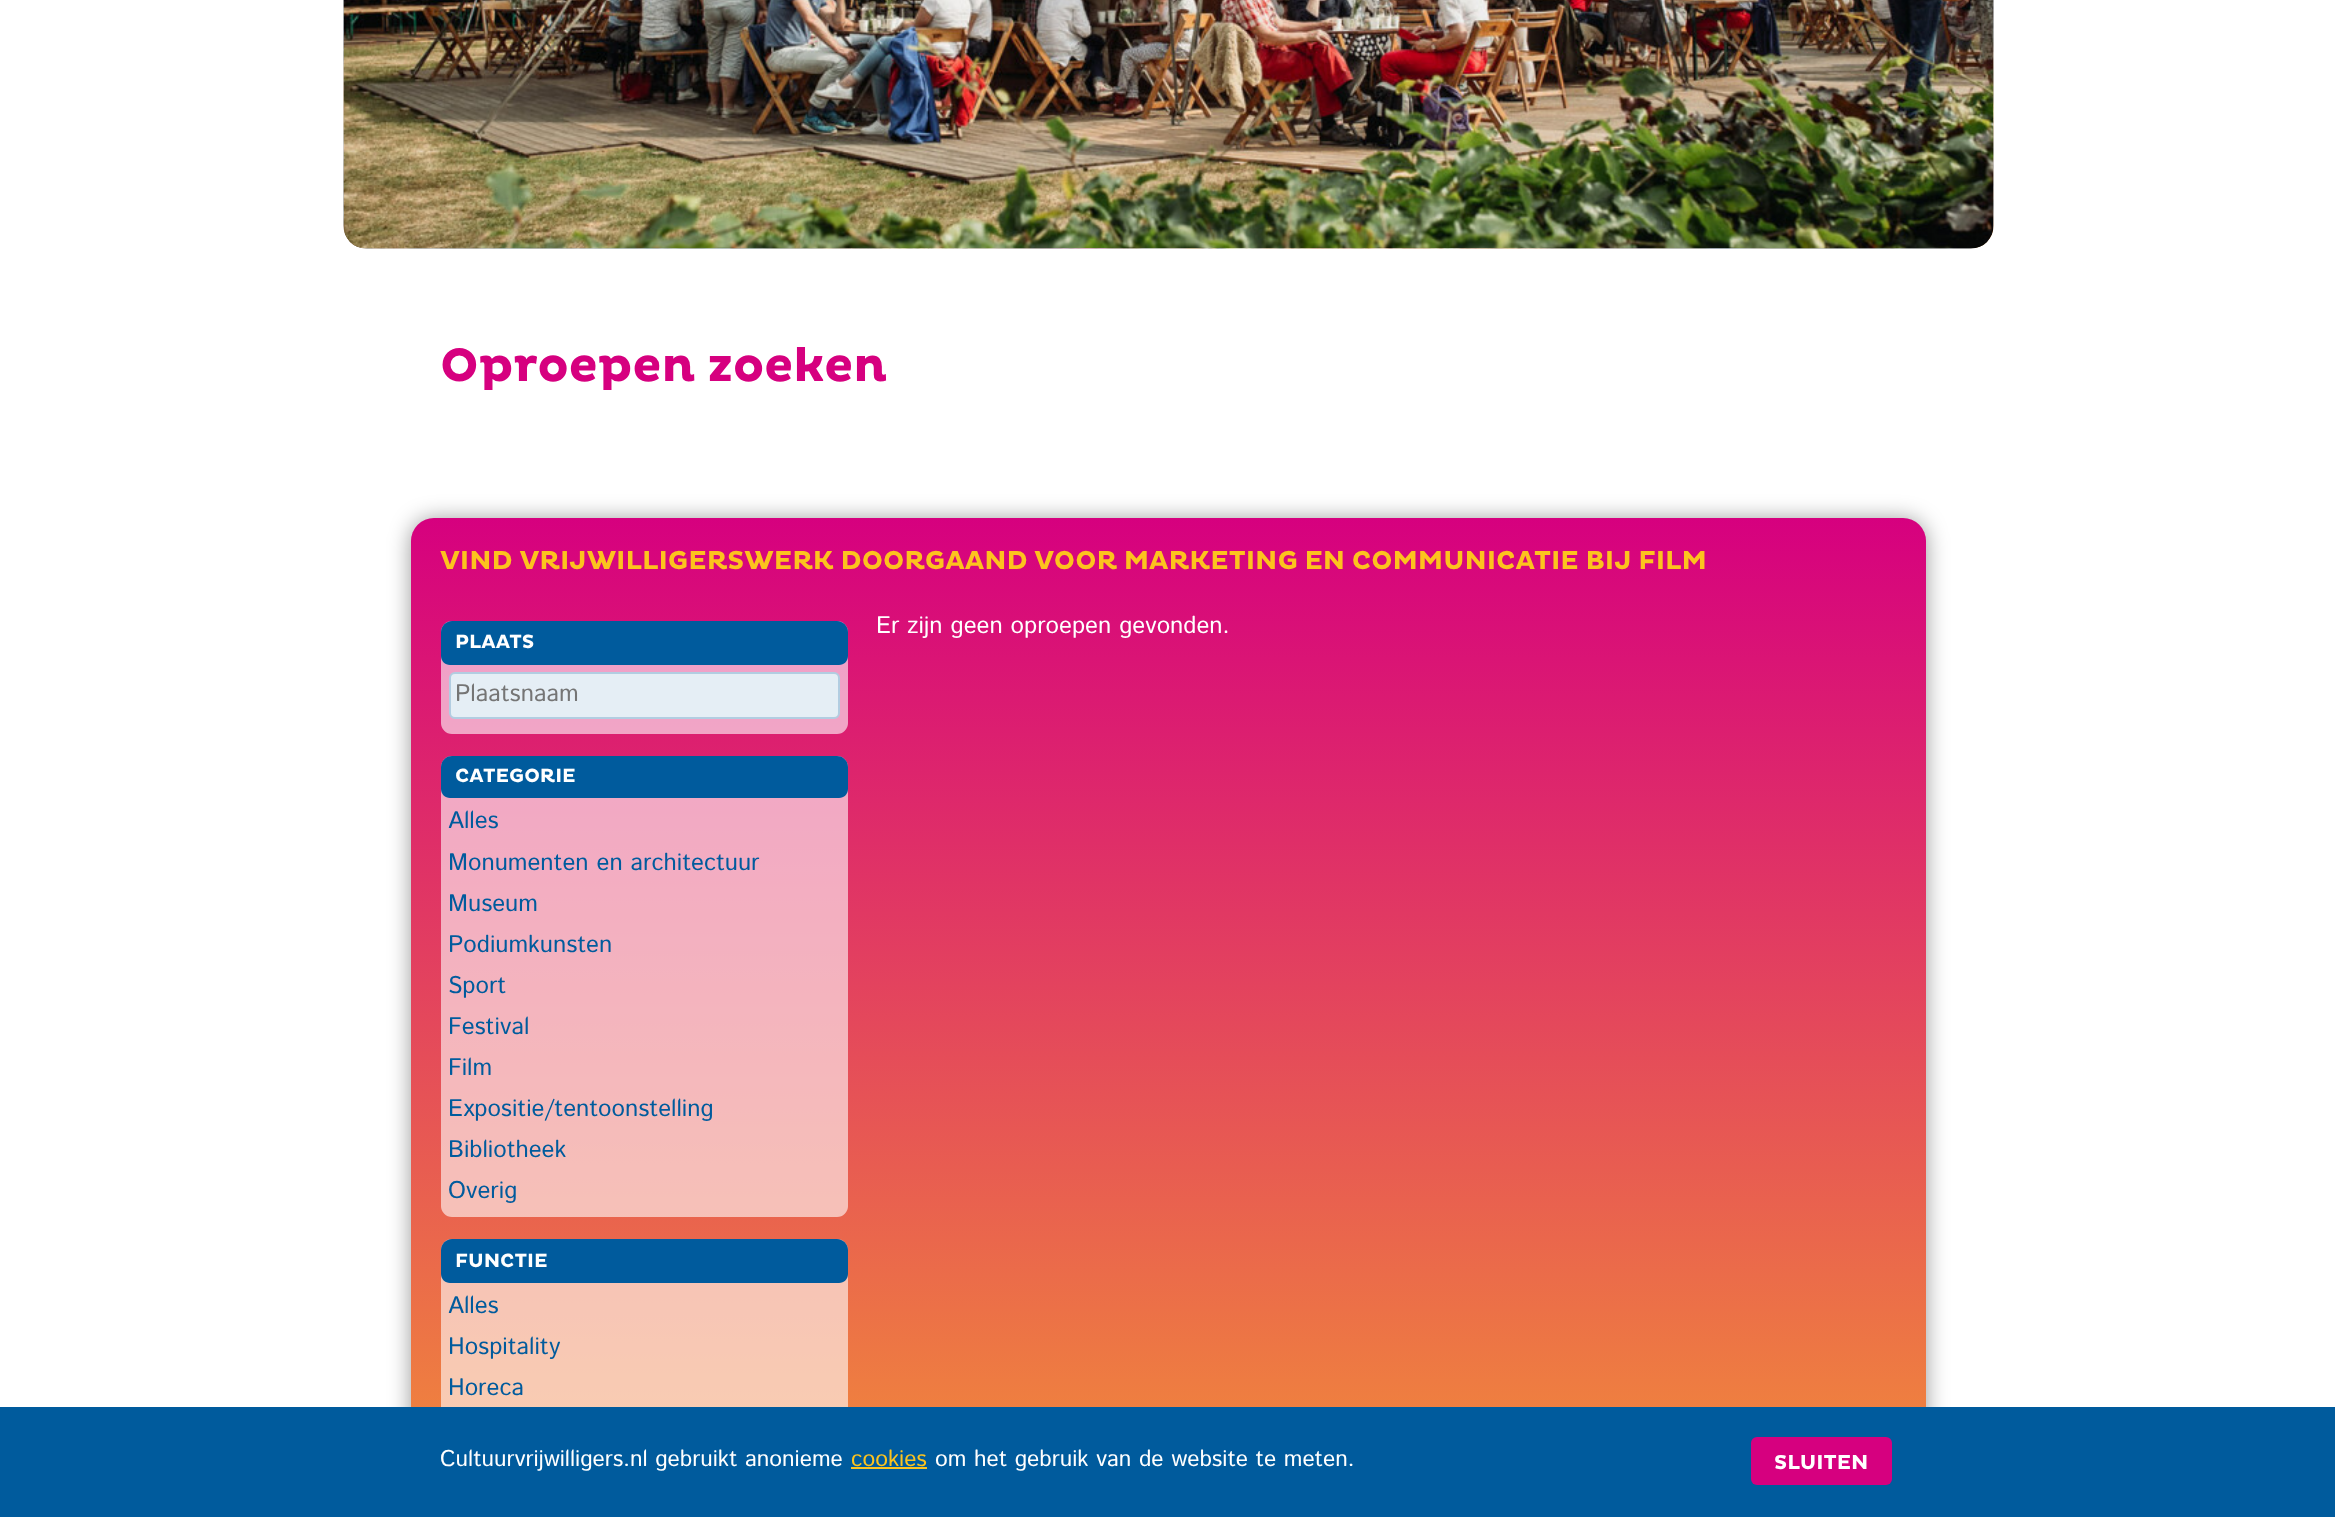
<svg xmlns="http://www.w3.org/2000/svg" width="2335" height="1517">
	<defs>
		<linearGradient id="g1" gradientUnits="userSpaceOnUse" x1="1169" y1="517" x2="1169" y2="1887"><stop offset="0" stop-color="#D6007F" /><stop offset="1" stop-color="#FCC31E" /></linearGradient>
	</defs>
	<rect width="100%" height="100%" fill="#FFFFFF" />
	<image x="343" y="0" width="1651" height="249" href="assets/img1.png" />
	<image x="343" y="0" width="1651" height="249" href="assets/img2.png" />
	<text x="440" y="381" font-family="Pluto" font-size="48" font-weight="700" fill="#D6007F">Oproepen zoeken</text>
	<rect x="411" y="519" width="1515" height="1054" rx="23" fill="#000000" fill-opacity="0.4" filter="blur(11px)" />
	<rect x="411" y="518" width="1515" height="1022" rx="23" fill="url(#g1)" />
	<text x="440" y="569" font-family="Pluto" font-size="26.4" font-weight="700" fill="#FCC31E">VIND VRIJWILLIGERSWERK DOORGAAND VOOR MARKETING EN COMMUNICATIE BIJ FILM</text>
	<text x="876" y="633" font-family="Istok Web" font-size="24" fill="#FFFFFF">Er zijn geen oproepen gevonden.</text>
	<rect x="441" y="621" width="407" height="113" rx="11" fill="#FFFFFF" fill-opacity="0.6" />
	<path d="M452 621H837C843 621 848 626 848 632V656C848 661 844 665 839 665H450C445 665 441 661 441 656V632C441 626 446 621 452 621Z" fill="#005B9D" />
	<text x="455" y="648" font-family="Pluto" font-size="19.5" font-weight="700" fill="#FFFFFF">PLAATS</text>
	<rect x="450" y="673" width="389" height="45" rx="5" fill="#E5EEF5" stroke="#B2CDE1" stroke-width="2" />
	<text x="455" y="701" font-family="Istok Web" font-size="24" fill="#757575">Plaatsnaam</text>
	<rect x="441" y="756" width="407" height="461" rx="11" fill="#FFFFFF" fill-opacity="0.6" />
	<path d="M452 756H837C843 756 848 761 848 767V789C848 794 844 798 839 798H450C445 798 441 794 441 789V767C441 761 446 756 452 756Z" fill="#005B9D" />
	<text x="455" y="782" font-family="Pluto" font-size="19.5" font-weight="700" fill="#FFFFFF">CATEGORIE</text>
	<g font-family="Istok Web" font-size="24" fill="#005B9D">
		<text x="448" y="828">Alles</text>
		<text x="448" y="870">Monumenten en architectuur</text>
		<text x="448" y="911">Museum</text>
		<text x="448" y="952">Podiumkunsten</text>
		<text x="448" y="993">Sport</text>
		<text x="448" y="1034">Festival</text>
		<text x="448" y="1075">Film</text>
		<text x="448" y="1116">Expositie/tentoonstelling</text>
		<text x="448" y="1157">Bibliotheek</text>
		<text x="448" y="1198">Overig</text>
	</g>
	<rect x="441" y="1239" width="407" height="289" rx="11" fill="#FFFFFF" fill-opacity="0.6" />
	<path d="M452 1239H837C843 1239 848 1244 848 1250V1274C848 1279 844 1283 839 1283H450C445 1283 441 1279 441 1274V1250C441 1244 446 1239 452 1239Z" fill="#005B9D" />
	<text x="455" y="1267" font-family="Pluto" font-size="19.5" font-weight="700" fill="#FFFFFF">FUNCTIE</text>
	<g font-family="Istok Web" font-size="24" fill="#005B9D">
		<text x="448" y="1313">Alles</text>
		<text x="448" y="1354">Hospitality</text>
		<text x="448" y="1395">Horeca</text>
	</g>
	<rect x="0" y="1407" width="2335" height="110" fill="#005B9D" />
	<text x="440" y="1466" font-family="Istok Web" font-size="22.75" fill="#FFFFFF">Cultuurvrijwilligers.nl gebruikt anonieme</text>
	<text x="851" y="1466" font-family="Istok Web" font-size="22.75" fill="#FCC31E">cookies</text>
	<rect x="851" y="1467" width="76" height="2" fill="#FCC31E" />
	<text x="935" y="1466" font-family="Istok Web" font-size="22.75" fill="#FFFFFF">om het gebruik van de website te meten.</text>
	<rect x="1751" y="1437" width="141" height="48" rx="6" fill="#D6007F" />
	<text x="1774" y="1469" font-family="Pluto" font-size="20.5" font-weight="700" fill="#FFFFFF">SLUITEN</text>
</svg>
